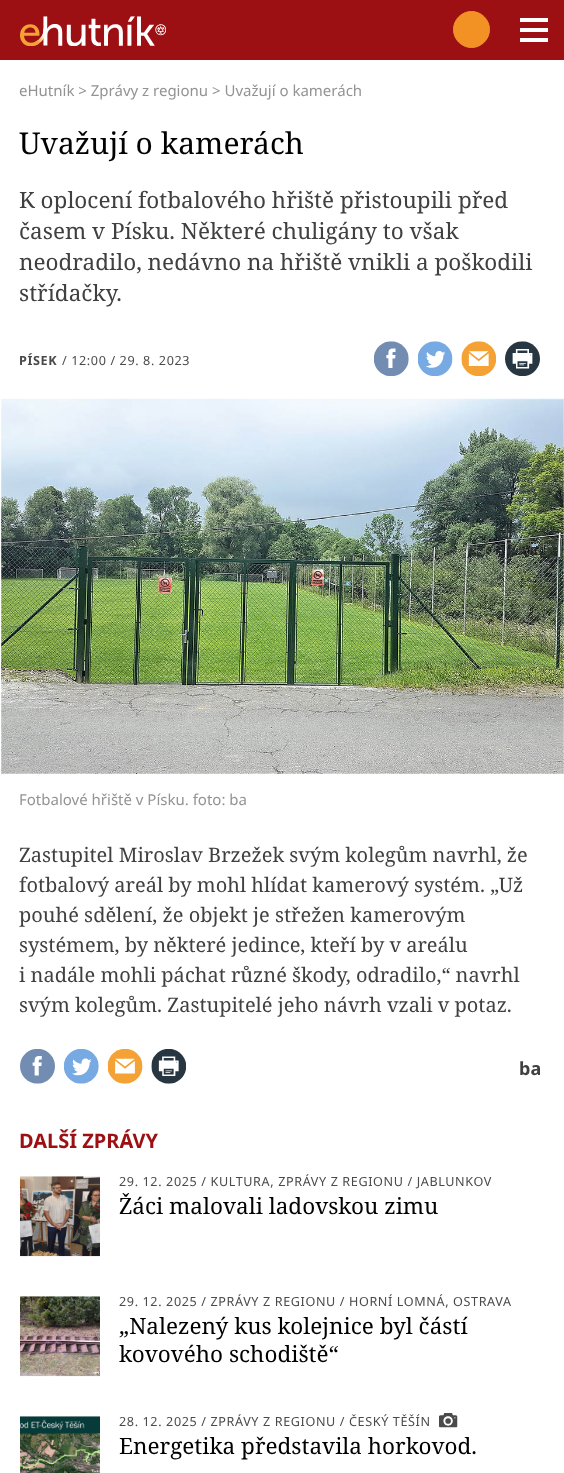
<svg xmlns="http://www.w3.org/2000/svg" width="564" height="1473">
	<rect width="100%" height="100%" fill="#FFFFFF" />
	<rect x="0" y="0" width="564" height="60" fill="#9C0F12" />
	<image x="20" y="16" width="146" height="30" href="assets/img1.png" />
	<circle cx="471.5" cy="29.5" r="18" fill="#F29224" stroke="#F29224" />
	<rect x="520" y="28" width="28" height="4" fill="#FFFFFF" />
	<rect x="520" y="18" width="28" height="4" fill="#FFFFFF" />
	<rect x="520" y="38" width="28" height="4" fill="#FFFFFF" />
	<text x="19" y="96" font-family="Noto Sans" font-size="15" fill="#939393">eHutník &gt; Zprávy z regionu &gt; Uvažují o kamerách</text>
	<text x="19" y="154" font-family="Noto Serif" font-size="30" fill="#000000">Uvažují o kamerách</text>
	<g font-family="Noto Serif" font-size="22.5" fill="#404040">
		<text x="19" y="208">K oplocení fotbalového hřiště přistoupili před</text>
		<text x="19" y="239">časem v Písku. Některé chuligány to však</text>
		<text x="19" y="270">neodradilo, nedávno na hřiště vnikli a poškodili</text>
		<text x="19" y="301">střídačky.</text>
	</g>
	<text x="19" y="365" font-family="Noto Sans" font-size="12.6" font-weight="700" letter-spacing="0.62" fill="#4A4A4A">PÍSEK</text>
	<text x="62" y="365" font-family="Noto Sans" font-size="12.6" letter-spacing="0.62" fill="#4A4A4A">/ 12:00 / 29. 8. 2023</text>
	<image x="374" y="341" width="35" height="35" href="assets/img2.png" />
	<image x="418" y="341" width="35" height="35" href="assets/img3.png" />
	<image x="461" y="341" width="35" height="35" href="assets/img4.png" />
	<image x="505" y="341" width="35" height="35" href="assets/img5.png" />
	<image x="1" y="398" width="563" height="376" href="assets/img6.png" />
	<text x="19" y="805" font-family="Noto Sans" font-size="15" fill="#939393">Fotbalové hřiště v Písku. foto: ba</text>
	<g font-family="Noto Serif" font-size="20" fill="#404040">
		<text x="19" y="862">Zastupitel Miroslav Brzežek svým kolegům navrhl, že</text>
		<text x="19" y="892">fotbalový areál by mohl hlídat kamerový systém. „Už</text>
		<text x="19" y="922">pouhé sdělení, že objekt je střežen kamerovým</text>
		<text x="19" y="952">systémem, by některé jedince, kteří by v areálu</text>
		<text x="19" y="982">i nadále mohli páchat různé škody, odradilo,“ navrhl</text>
		<text x="19" y="1012">svým kolegům. Zastupitelé jeho návrh vzali v potaz.</text>
	</g>
	<image x="20" y="1049" width="35" height="35" href="assets/img7.png" />
	<image x="64" y="1049" width="35" height="35" href="assets/img8.png" />
	<image x="108" y="1049" width="35" height="35" href="assets/img9.png" />
	<image x="151" y="1049" width="35" height="35" href="assets/img10.png" />
	<text x="519" y="1075" font-family="Noto Sans" font-size="18" font-weight="700" fill="#404040">ba</text>
	<text x="19" y="1148" font-family="Noto Sans" font-size="20" font-weight="700" fill="#9C0F12">DALŠÍ ZPRÁVY</text>
	<image x="20" y="1176" width="80" height="81" href="assets/img11.png" />
	<text x="119" y="1186" font-family="Noto Sans" font-size="12.6" letter-spacing="0.62" fill="#4A4A4A">29. 12. 2025 / KULTURA, ZPRÁVY Z REGIONU / JABLUNKOV</text>
	<text x="119" y="1214" font-family="Noto Serif" font-size="22.5" fill="#000000">Žáci malovali ladovskou zimu</text>
	<image x="20" y="1296" width="80" height="81" href="assets/img12.png" />
	<text x="119" y="1306" font-family="Noto Sans" font-size="12.6" letter-spacing="0.62" fill="#4A4A4A">29. 12. 2025 / ZPRÁVY Z REGIONU / HORNÍ LOMNÁ, OSTRAVA</text>
	<g font-family="Noto Serif" font-size="22.5" fill="#000000">
		<text x="119" y="1334">„Nalezený kus kolejnice byl částí</text>
		<text x="119" y="1362">kovového schodiště“</text>
	</g>
	<image x="20" y="1416" width="80" height="57" href="assets/img13.png" />
	<text x="119" y="1426" font-family="Noto Sans" font-size="12.6" letter-spacing="0.62" fill="#4A4A4A">28. 12. 2025 / ZPRÁVY Z REGIONU / ČESKÝ TĚŠÍN</text>
	<image x="439" y="1413" width="19" height="15" href="assets/img14.png" />
	<text x="119" y="1454" font-family="Noto Serif" font-size="22.5" fill="#000000">Energetika představila horkovod.</text>
</svg>
